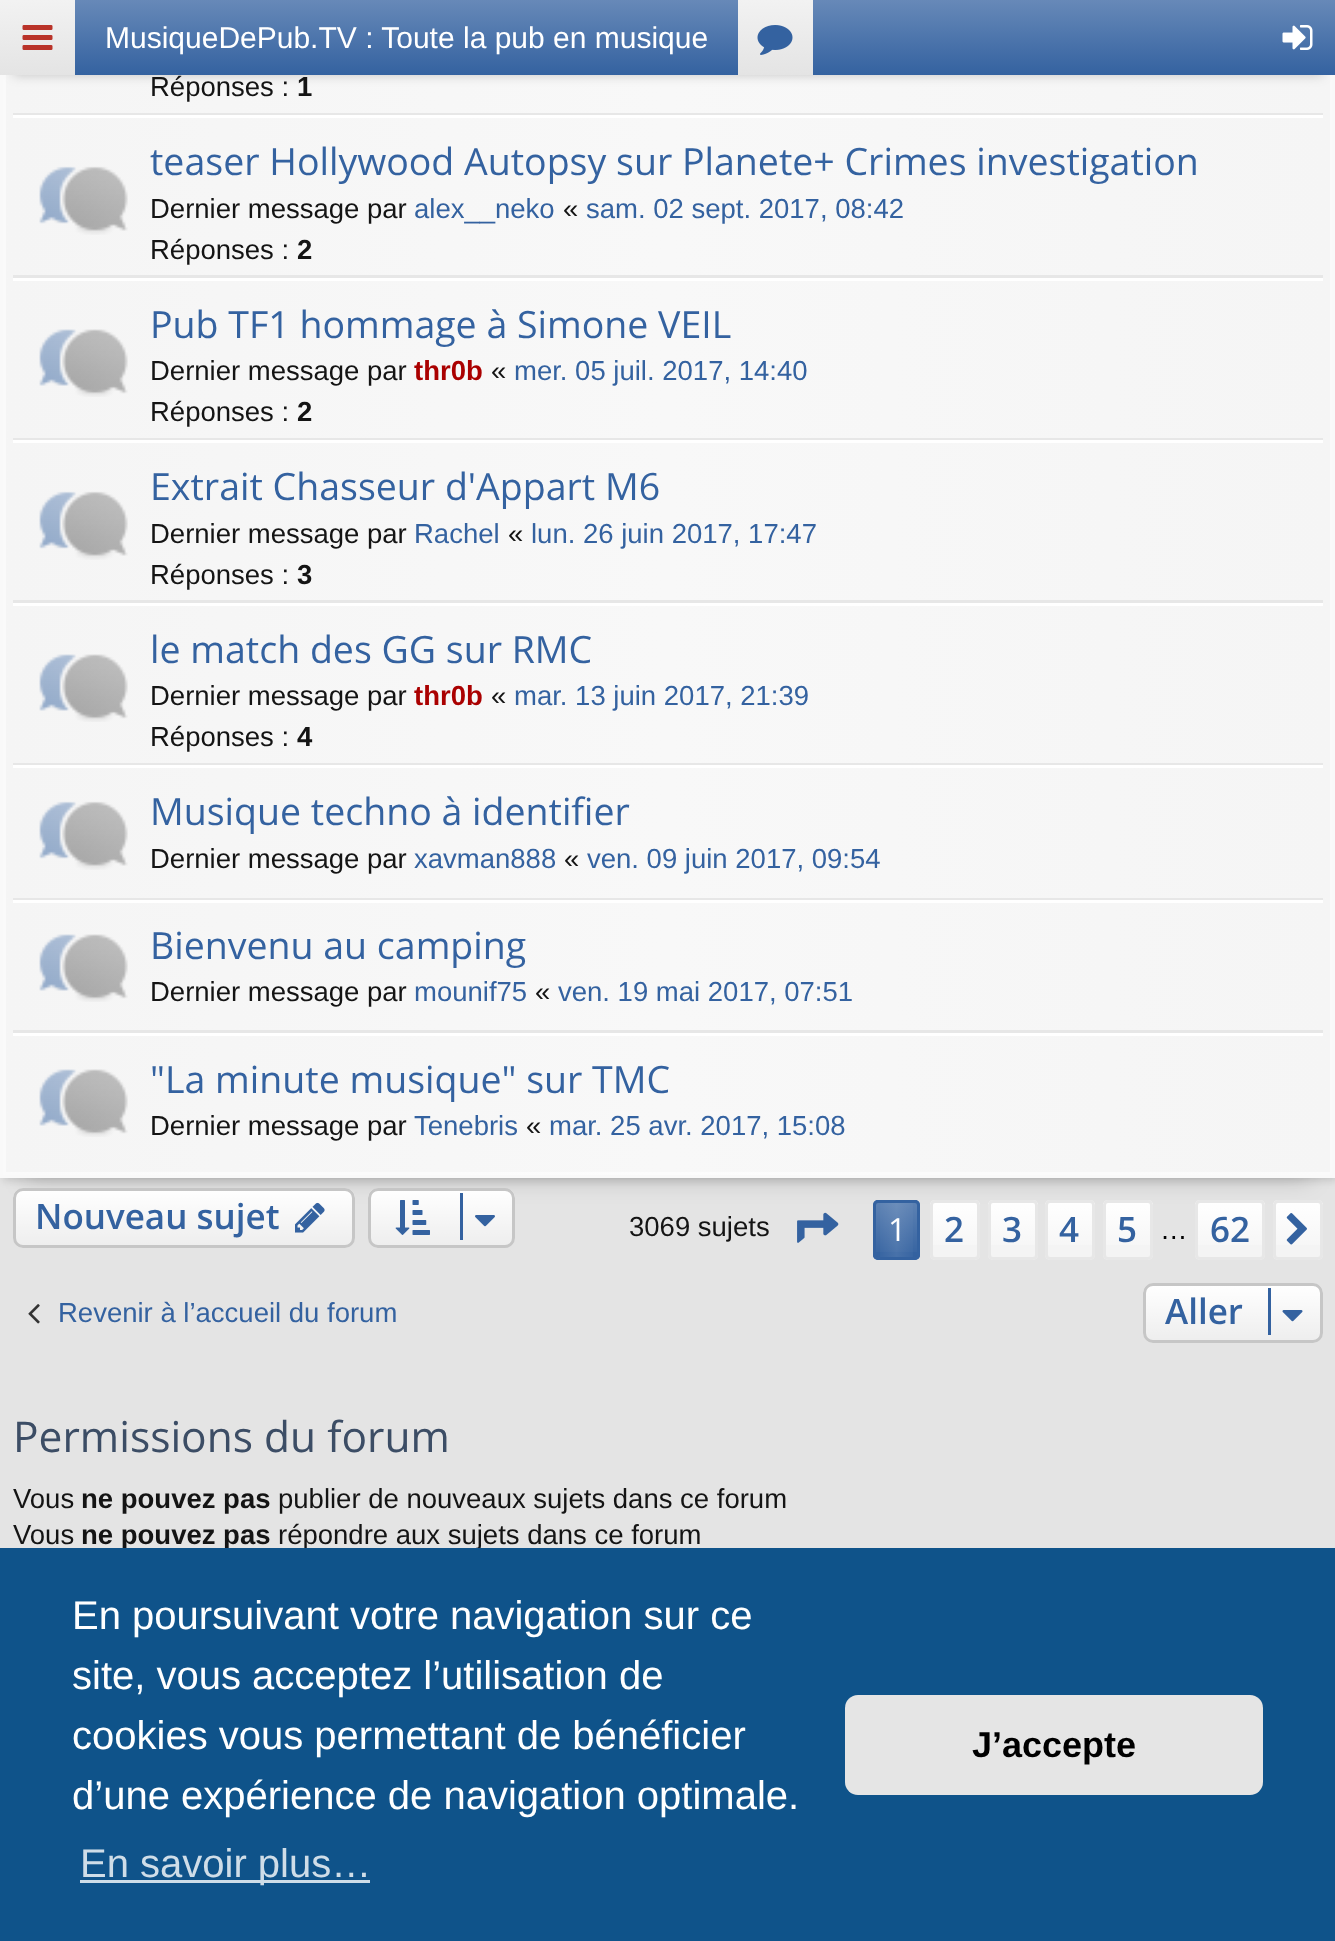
<svg xmlns="http://www.w3.org/2000/svg" width="1335" height="1941">
	<defs>
		<linearGradient id="g1" gradientUnits="userSpaceOnUse" x1="2.5" y1="-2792" x2="1333" y2="-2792"><stop offset="0" stop-color="#F5F5F5" /><stop offset="0.5" stop-color="#F8F8F8" /><stop offset="1" stop-color="#F5F5F5" /></linearGradient>
		<linearGradient id="g2" gradientUnits="userSpaceOnUse" x1="668" y1="0" x2="668" y2="75"><stop offset="0" stop-color="#6789B8" /><stop offset="1" stop-color="#3462A0" /></linearGradient>
		<linearGradient id="g3" gradientUnits="userSpaceOnUse" x1="37" y1="0" x2="38" y2="75"><stop offset="0" stop-color="#F2F2F2" /><stop offset="1" stop-color="#E4E4E4" /></linearGradient>
		<linearGradient id="g4" gradientUnits="userSpaceOnUse" x1="775" y1="0" x2="775" y2="75"><stop offset="0" stop-color="#F2F2F2" /><stop offset="1" stop-color="#E4E4E4" /></linearGradient>
		<clipPath id="clip1"><rect x="13" y="1188" width="342" height="60" rx="10" /></clipPath>
		<linearGradient id="g5" gradientUnits="userSpaceOnUse" x1="184" y1="1190" x2="184" y2="1245"><stop offset="0" stop-color="#FFFFFF" /><stop offset="1" stop-color="#FFFFFF" stop-opacity="0" /></linearGradient>
		<clipPath id="clip2"><rect x="368" y="1188" width="147" height="60" rx="10" /></clipPath>
		<linearGradient id="g6" gradientUnits="userSpaceOnUse" x1="441" y1="1190" x2="441" y2="1245"><stop offset="0" stop-color="#FFFFFF" /><stop offset="1" stop-color="#FFFFFF" stop-opacity="0" /></linearGradient>
		<linearGradient id="g7" gradientUnits="userSpaceOnUse" x1="875" y1="1230" x2="918" y2="1230"><stop offset="0" stop-color="#FFFFFF" stop-opacity="0" /><stop offset="0.5" stop-color="#FFFFFF" stop-opacity="0.1" /><stop offset="1" stop-color="#FFFFFF" stop-opacity="0" /></linearGradient>
		<linearGradient id="g8" gradientUnits="userSpaceOnUse" x1="896" y1="1203" x2="896" y2="1258"><stop offset="0" stop-color="#FFFFFF" stop-opacity="0.2" /><stop offset="1" stop-color="#FFFFFF" stop-opacity="0" /></linearGradient>
		<linearGradient id="g9" gradientUnits="userSpaceOnUse" x1="955" y1="1203" x2="955" y2="1258"><stop offset="0" stop-color="#FFFFFF" /><stop offset="1" stop-color="#FFFFFF" stop-opacity="0" /></linearGradient>
		<linearGradient id="g10" gradientUnits="userSpaceOnUse" x1="1013" y1="1203" x2="1013" y2="1258"><stop offset="0" stop-color="#FFFFFF" /><stop offset="1" stop-color="#FFFFFF" stop-opacity="0" /></linearGradient>
		<linearGradient id="g11" gradientUnits="userSpaceOnUse" x1="1070" y1="1203" x2="1070" y2="1258"><stop offset="0" stop-color="#FFFFFF" /><stop offset="1" stop-color="#FFFFFF" stop-opacity="0" /></linearGradient>
		<linearGradient id="g12" gradientUnits="userSpaceOnUse" x1="1128" y1="1203" x2="1128" y2="1258"><stop offset="0" stop-color="#FFFFFF" /><stop offset="1" stop-color="#FFFFFF" stop-opacity="0" /></linearGradient>
		<linearGradient id="g13" gradientUnits="userSpaceOnUse" x1="1230" y1="1203" x2="1230" y2="1258"><stop offset="0" stop-color="#FFFFFF" /><stop offset="1" stop-color="#FFFFFF" stop-opacity="0" /></linearGradient>
		<linearGradient id="g14" gradientUnits="userSpaceOnUse" x1="1298" y1="1203" x2="1298" y2="1258"><stop offset="0" stop-color="#FFFFFF" /><stop offset="1" stop-color="#FFFFFF" stop-opacity="0" /></linearGradient>
		<clipPath id="clip3"><rect x="1143" y="1283" width="180" height="60" rx="10" /></clipPath>
		<linearGradient id="g15" gradientUnits="userSpaceOnUse" x1="1233" y1="1285" x2="1233" y2="1340"><stop offset="0" stop-color="#FFFFFF" /><stop offset="1" stop-color="#FFFFFF" stop-opacity="0" /></linearGradient>
	</defs>
	<rect width="100%" height="100%" fill="#E4E4E4" />
	<rect x="25" y="-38" width="1285" height="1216" fill="#000000" fill-opacity="0.2" filter="blur(12.5px)" />
	<rect x="3" y="-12" width="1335" height="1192" fill="#000000" fill-opacity="0.15" filter="blur(4px)" />
	<rect x="3" y="75" width="1329" height="1100" fill="url(#g1)" />
	<rect x="4.5" y="-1.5" width="1327" height="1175" fill="none" stroke="#FFFFFF" stroke-opacity="0.5" stroke-width="3" />
	<rect x="1.5" y="-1.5" width="1332" height="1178" fill="none" stroke="#F9F9F9" stroke-width="3" />
	<rect x="13" y="25" width="1310" height="50" fill="#000000" fill-opacity="0.2" filter="blur(6px)" />
	<rect x="75" y="0" width="1260" height="75" fill="url(#g2)" />
	<rect x="0" y="0" width="75" height="75" fill="url(#g3)" />
	<image x="22" y="25" width="31" height="25" href="assets/img1.png" />
	<text x="105" y="48" font-family="Liberation Sans" font-size="30" fill="#FFFFFF">MusiqueDePub.TV : Toute la pub en musique</text>
	<rect x="738" y="0" width="75" height="75" fill="url(#g4)" />
	<image x="757" y="25" width="36" height="30" href="assets/img2.png" />
	<image x="1282" y="25" width="31" height="25" href="assets/img3.png" />
	<rect x="13" y="113" width="1310" height="2" fill="#E7E7E7" />
	<text x="150" y="96" font-family="Liberation Sans" font-size="27.5" fill="#141414">Réponses :</text>
	<text x="297" y="96" font-family="Liberation Sans" font-size="27.5" font-weight="700" fill="#141414">1</text>
	<rect x="13" y="115" width="1310" height="3" fill="#FFFFFF" />
	<rect x="13" y="275" width="1310" height="3" fill="#E7E7E7" />
	<image x="39" y="166" width="89" height="69" href="assets/img4.png" />
	<text x="150" y="175" font-family="Open Sans" font-size="37.5" fill="#3462A0">teaser Hollywood Autopsy sur Planete+ Crimes investigation</text>
	<text x="150" y="218" font-family="Liberation Sans" font-size="27.5" fill="#141414">Dernier message par</text>
	<text x="414" y="218" font-family="Liberation Sans" font-size="27.5" fill="#3462A0">alex__neko</text>
	<text x="563" y="218" font-family="Liberation Sans" font-size="27.5" fill="#141414">«</text>
	<text x="586" y="218" font-family="Liberation Sans" font-size="27.5" fill="#3462A0">sam. 02 sept. 2017, 08:42</text>
	<text x="150" y="259" font-family="Liberation Sans" font-size="27.5" fill="#141414">Réponses :</text>
	<text x="297" y="259" font-family="Liberation Sans" font-size="27.5" font-weight="700" fill="#141414">2</text>
	<rect x="13" y="278" width="1310" height="3" fill="#FFFFFF" />
	<rect x="13" y="438" width="1310" height="2" fill="#E7E7E7" />
	<image x="39" y="329" width="89" height="68" href="assets/img5.png" />
	<text x="150" y="338" font-family="Open Sans" font-size="37.5" fill="#3462A0">Pub TF1 hommage à Simone VEIL</text>
	<text x="150" y="380" font-family="Liberation Sans" font-size="27.5" fill="#141414">Dernier message par</text>
	<text x="414" y="380" font-family="Liberation Sans" font-size="27.5" font-weight="700" fill="#AA0000">thr0b</text>
	<text x="491" y="380" font-family="Liberation Sans" font-size="27.5" fill="#141414">«</text>
	<text x="514" y="380" font-family="Liberation Sans" font-size="27.5" fill="#3462A0">mer. 05 juil. 2017, 14:40</text>
	<text x="150" y="421" font-family="Liberation Sans" font-size="27.5" fill="#141414">Réponses :</text>
	<text x="297" y="421" font-family="Liberation Sans" font-size="27.5" font-weight="700" fill="#141414">2</text>
	<rect x="13" y="440" width="1310" height="3" fill="#FFFFFF" />
	<rect x="13" y="600" width="1310" height="3" fill="#E7E7E7" />
	<image x="39" y="491" width="89" height="69" href="assets/img6.png" />
	<text x="150" y="500" font-family="Open Sans" font-size="37.5" fill="#3462A0">Extrait Chasseur d'Appart M6</text>
	<text x="150" y="543" font-family="Liberation Sans" font-size="27.5" fill="#141414">Dernier message par</text>
	<text x="414" y="543" font-family="Liberation Sans" font-size="27.5" fill="#3462A0">Rachel</text>
	<text x="508" y="543" font-family="Liberation Sans" font-size="27.5" fill="#141414">«</text>
	<text x="531" y="543" font-family="Liberation Sans" font-size="27.5" fill="#3462A0">lun. 26 juin 2017, 17:47</text>
	<text x="150" y="584" font-family="Liberation Sans" font-size="27.5" fill="#141414">Réponses :</text>
	<text x="297" y="584" font-family="Liberation Sans" font-size="27.5" font-weight="700" fill="#141414">3</text>
	<rect x="13" y="603" width="1310" height="3" fill="#FFFFFF" />
	<rect x="13" y="763" width="1310" height="2" fill="#E7E7E7" />
	<image x="39" y="654" width="89" height="68" href="assets/img5.png" />
	<text x="150" y="663" font-family="Open Sans" font-size="37.5" fill="#3462A0">le match des GG sur RMC</text>
	<text x="150" y="705" font-family="Liberation Sans" font-size="27.5" fill="#141414">Dernier message par</text>
	<text x="414" y="705" font-family="Liberation Sans" font-size="27.5" font-weight="700" fill="#AA0000">thr0b</text>
	<text x="491" y="705" font-family="Liberation Sans" font-size="27.5" fill="#141414">«</text>
	<text x="514" y="705" font-family="Liberation Sans" font-size="27.5" fill="#3462A0">mar. 13 juin 2017, 21:39</text>
	<text x="150" y="746" font-family="Liberation Sans" font-size="27.5" fill="#141414">Réponses :</text>
	<text x="297" y="746" font-family="Liberation Sans" font-size="27.5" font-weight="700" fill="#141414">4</text>
	<rect x="13" y="765" width="1310" height="3" fill="#FFFFFF" />
	<rect x="13" y="898" width="1310" height="2" fill="#E7E7E7" />
	<image x="39" y="801" width="89" height="69" href="assets/img4.png" />
	<text x="150" y="825" font-family="Open Sans" font-size="37.5" fill="#3462A0">Musique techno à identifier</text>
	<text x="150" y="868" font-family="Liberation Sans" font-size="27.5" fill="#141414">Dernier message par</text>
	<text x="414" y="868" font-family="Liberation Sans" font-size="27.5" fill="#3462A0">xavman888</text>
	<text x="564" y="868" font-family="Liberation Sans" font-size="27.5" fill="#141414">«</text>
	<text x="587" y="868" font-family="Liberation Sans" font-size="27.5" fill="#3462A0">ven. 09 juin 2017, 09:54</text>
	<rect x="13" y="900" width="1310" height="3" fill="#FFFFFF" />
	<rect x="13" y="1030" width="1310" height="3" fill="#E7E7E7" />
	<image x="39" y="934" width="89" height="68" href="assets/img5.png" />
	<text x="150" y="959" font-family="Open Sans" font-size="37.5" fill="#3462A0">Bienvenu au camping</text>
	<text x="150" y="1001" font-family="Liberation Sans" font-size="27.5" fill="#141414">Dernier message par</text>
	<text x="414" y="1001" font-family="Liberation Sans" font-size="27.5" fill="#3462A0">mounif75</text>
	<text x="535" y="1001" font-family="Liberation Sans" font-size="27.5" fill="#141414">«</text>
	<text x="558" y="1001" font-family="Liberation Sans" font-size="27.5" fill="#3462A0">ven. 19 mai 2017, 07:51</text>
	<rect x="13" y="1033" width="1310" height="3" fill="#FFFFFF" />
	<image x="39" y="1069" width="89" height="68" href="assets/img5.png" />
	<text x="150" y="1093" font-family="Open Sans" font-size="37.5" fill="#3462A0">"La minute musique" sur TMC</text>
	<text x="150" y="1135" font-family="Liberation Sans" font-size="27.5" fill="#141414">Dernier message par</text>
	<text x="414" y="1135" font-family="Liberation Sans" font-size="27.5" fill="#3462A0">Tenebris</text>
	<text x="526" y="1135" font-family="Liberation Sans" font-size="27.5" fill="#141414">«</text>
	<text x="549" y="1135" font-family="Liberation Sans" font-size="27.5" fill="#3462A0">mar. 25 avr. 2017, 15:08</text>
	<rect x="13" y="1188" width="342" height="60" rx="10" fill="#EEEEEE" />
	<g clip-path="url(#clip1)">
		<rect x="13" y="1190" width="342" height="54" fill="url(#g5)" />
	</g>
	<rect x="14.5" y="1189.5" width="339" height="57" rx="8.5" fill="none" stroke="#C6C6C6" stroke-width="3" />
	<text x="35" y="1229" font-family="Open Sans" font-size="35" font-weight="600" fill="#3462A0">Nouveau sujet</text>
	<image x="295" y="1202" width="30" height="31" href="assets/img7.png" />
	<rect x="368" y="1188" width="147" height="60" rx="10" fill="#EEEEEE" />
	<g clip-path="url(#clip2)">
		<rect x="368" y="1190" width="147" height="54" fill="url(#g6)" />
	</g>
	<rect x="369.5" y="1189.5" width="144" height="57" rx="8.5" fill="none" stroke="#C6C6C6" stroke-width="3" />
	<image x="395" y="1200" width="35" height="35" href="assets/img8.png" />
	<rect x="460" y="1193" width="3" height="47" fill="#3462A0" />
	<image x="475" y="1215" width="20" height="12" href="assets/img9.png" />
	<text x="629" y="1236" font-family="Liberation Sans" font-size="27.5" fill="#141414">3069 sujets</text>
	<image x="797" y="1212" width="42" height="31" href="assets/img10.png" />
	<rect x="873" y="1200" width="47" height="60" rx="5" fill="#3462A0" />
	<rect x="880" y="1203" width="33" height="54" fill="url(#g7)" />
	<rect x="873" y="1203" width="47" height="49" fill="url(#g8)" />
	<rect x="874.5" y="1201.5" width="44" height="57" rx="3.5" fill="none" stroke="#3462A0" stroke-width="3" />
	<text x="888" y="1241" font-family="Open Sans" font-size="32" fill="#FFFFFF">1</text>
	<rect x="930" y="1200" width="50" height="60" rx="5" fill="#F4F4F4" />
	<rect x="930" y="1203" width="50" height="42" fill="url(#g9)" />
	<rect x="931.5" y="1201.5" width="47" height="57" rx="3.5" fill="none" stroke="#E7E7E7" stroke-width="3" />
	<text x="944" y="1242" font-family="Open Sans" font-size="35" font-weight="600" fill="#3462A0">2</text>
	<rect x="988" y="1200" width="50" height="60" rx="5" fill="#F4F4F4" />
	<rect x="988" y="1203" width="50" height="42" fill="url(#g10)" />
	<rect x="989.5" y="1201.5" width="47" height="57" rx="3.5" fill="none" stroke="#E7E7E7" stroke-width="3" />
	<text x="1002" y="1242" font-family="Open Sans" font-size="35" font-weight="600" fill="#3462A0">3</text>
	<rect x="1045" y="1200" width="50" height="60" rx="5" fill="#F4F4F4" />
	<rect x="1045" y="1203" width="50" height="42" fill="url(#g11)" />
	<rect x="1046.5" y="1201.5" width="47" height="57" rx="3.5" fill="none" stroke="#E7E7E7" stroke-width="3" />
	<text x="1059" y="1242" font-family="Open Sans" font-size="35" font-weight="600" fill="#3462A0">4</text>
	<rect x="1103" y="1200" width="50" height="60" rx="5" fill="#F4F4F4" />
	<rect x="1103" y="1203" width="50" height="42" fill="url(#g12)" />
	<rect x="1104.5" y="1201.5" width="47" height="57" rx="3.5" fill="none" stroke="#E7E7E7" stroke-width="3" />
	<text x="1117" y="1242" font-family="Open Sans" font-size="35" font-weight="600" fill="#3462A0">5</text>
	<text x="1160" y="1239" font-family="Liberation Sans" font-size="27.5" fill="#000000">…</text>
	<rect x="1195" y="1200" width="70" height="60" rx="5" fill="#F4F4F4" />
	<rect x="1195" y="1203" width="70" height="42" fill="url(#g13)" />
	<rect x="1196.5" y="1201.5" width="67" height="57" rx="3.5" fill="none" stroke="#E7E7E7" stroke-width="3" />
	<text x="1210" y="1242" font-family="Open Sans" font-size="35" font-weight="600" fill="#3462A0">62</text>
	<rect x="1273" y="1200" width="50" height="60" rx="5" fill="#F4F4F4" />
	<rect x="1273" y="1203" width="50" height="42" fill="url(#g14)" />
	<rect x="1274.5" y="1201.5" width="47" height="57" rx="3.5" fill="none" stroke="#E7E7E7" stroke-width="3" />
	<image x="1286" y="1213" width="21" height="32" href="assets/img11.png" />
	<image x="28" y="1304" width="12" height="20" href="assets/img12.png" />
	<text x="58" y="1322" font-family="Liberation Sans" font-size="27.5" fill="#3462A0">Revenir à l’accueil du forum</text>
	<rect x="1143" y="1283" width="180" height="60" rx="10" fill="#EEEEEE" />
	<g clip-path="url(#clip3)">
		<rect x="1143" y="1285" width="180" height="54" fill="url(#g15)" />
	</g>
	<rect x="1144.5" y="1284.5" width="177" height="57" rx="8.5" fill="none" stroke="#C6C6C6" stroke-width="3" />
	<text x="1165" y="1324" font-family="Open Sans" font-size="35" font-weight="600" fill="#3462A0">Aller</text>
	<rect x="1268" y="1288" width="3" height="47" fill="#3462A0" />
	<image x="1282" y="1310" width="21" height="12" href="assets/img13.png" />
	<text x="13" y="1452" font-family="Open Sans" font-size="42.5" fill="#3C4D65">Permissions du forum</text>
	<text x="13" y="1508" font-family="Liberation Sans" font-size="27.5" fill="#141414">Vous</text>
	<text x="81" y="1508" font-family="Liberation Sans" font-size="27.5" font-weight="700" fill="#141414">ne pouvez pas</text>
	<g font-family="Liberation Sans" font-size="27.5" fill="#141414">
		<text x="278" y="1508">publier de nouveaux sujets dans ce forum</text>
		<text x="13" y="1544">Vous</text>
	</g>
	<text x="81" y="1544" font-family="Liberation Sans" font-size="27.5" font-weight="700" fill="#141414">ne pouvez pas</text>
	<text x="278" y="1544" font-family="Liberation Sans" font-size="27.5" fill="#141414">répondre aux sujets dans ce forum</text>
	<rect x="0" y="1548" width="1335" height="393" fill="#0F538A" />
	<g font-family="Liberation Sans" font-size="40" fill="#FFFFFF">
		<text x="72" y="1629">En poursuivant votre navigation sur ce</text>
		<text x="72" y="1689">site, vous acceptez l’utilisation de</text>
		<text x="72" y="1749">cookies vous permettant de bénéficier</text>
		<text x="72" y="1809">d’une expérience de navigation optimale.</text>
	</g>
	<rect x="80" y="1880" width="290" height="3" fill="#CFDDE8" />
	<text x="80" y="1877" font-family="Liberation Sans" font-size="40" fill="#CFDDE8">En savoir plus…</text>
	<rect x="845" y="1695" width="418" height="100" rx="13" fill="#E5E5E5" />
	<text x="972" y="1757" font-family="Liberation Sans" font-size="36" font-weight="700" fill="#000000">J’accepte</text>
</svg>
